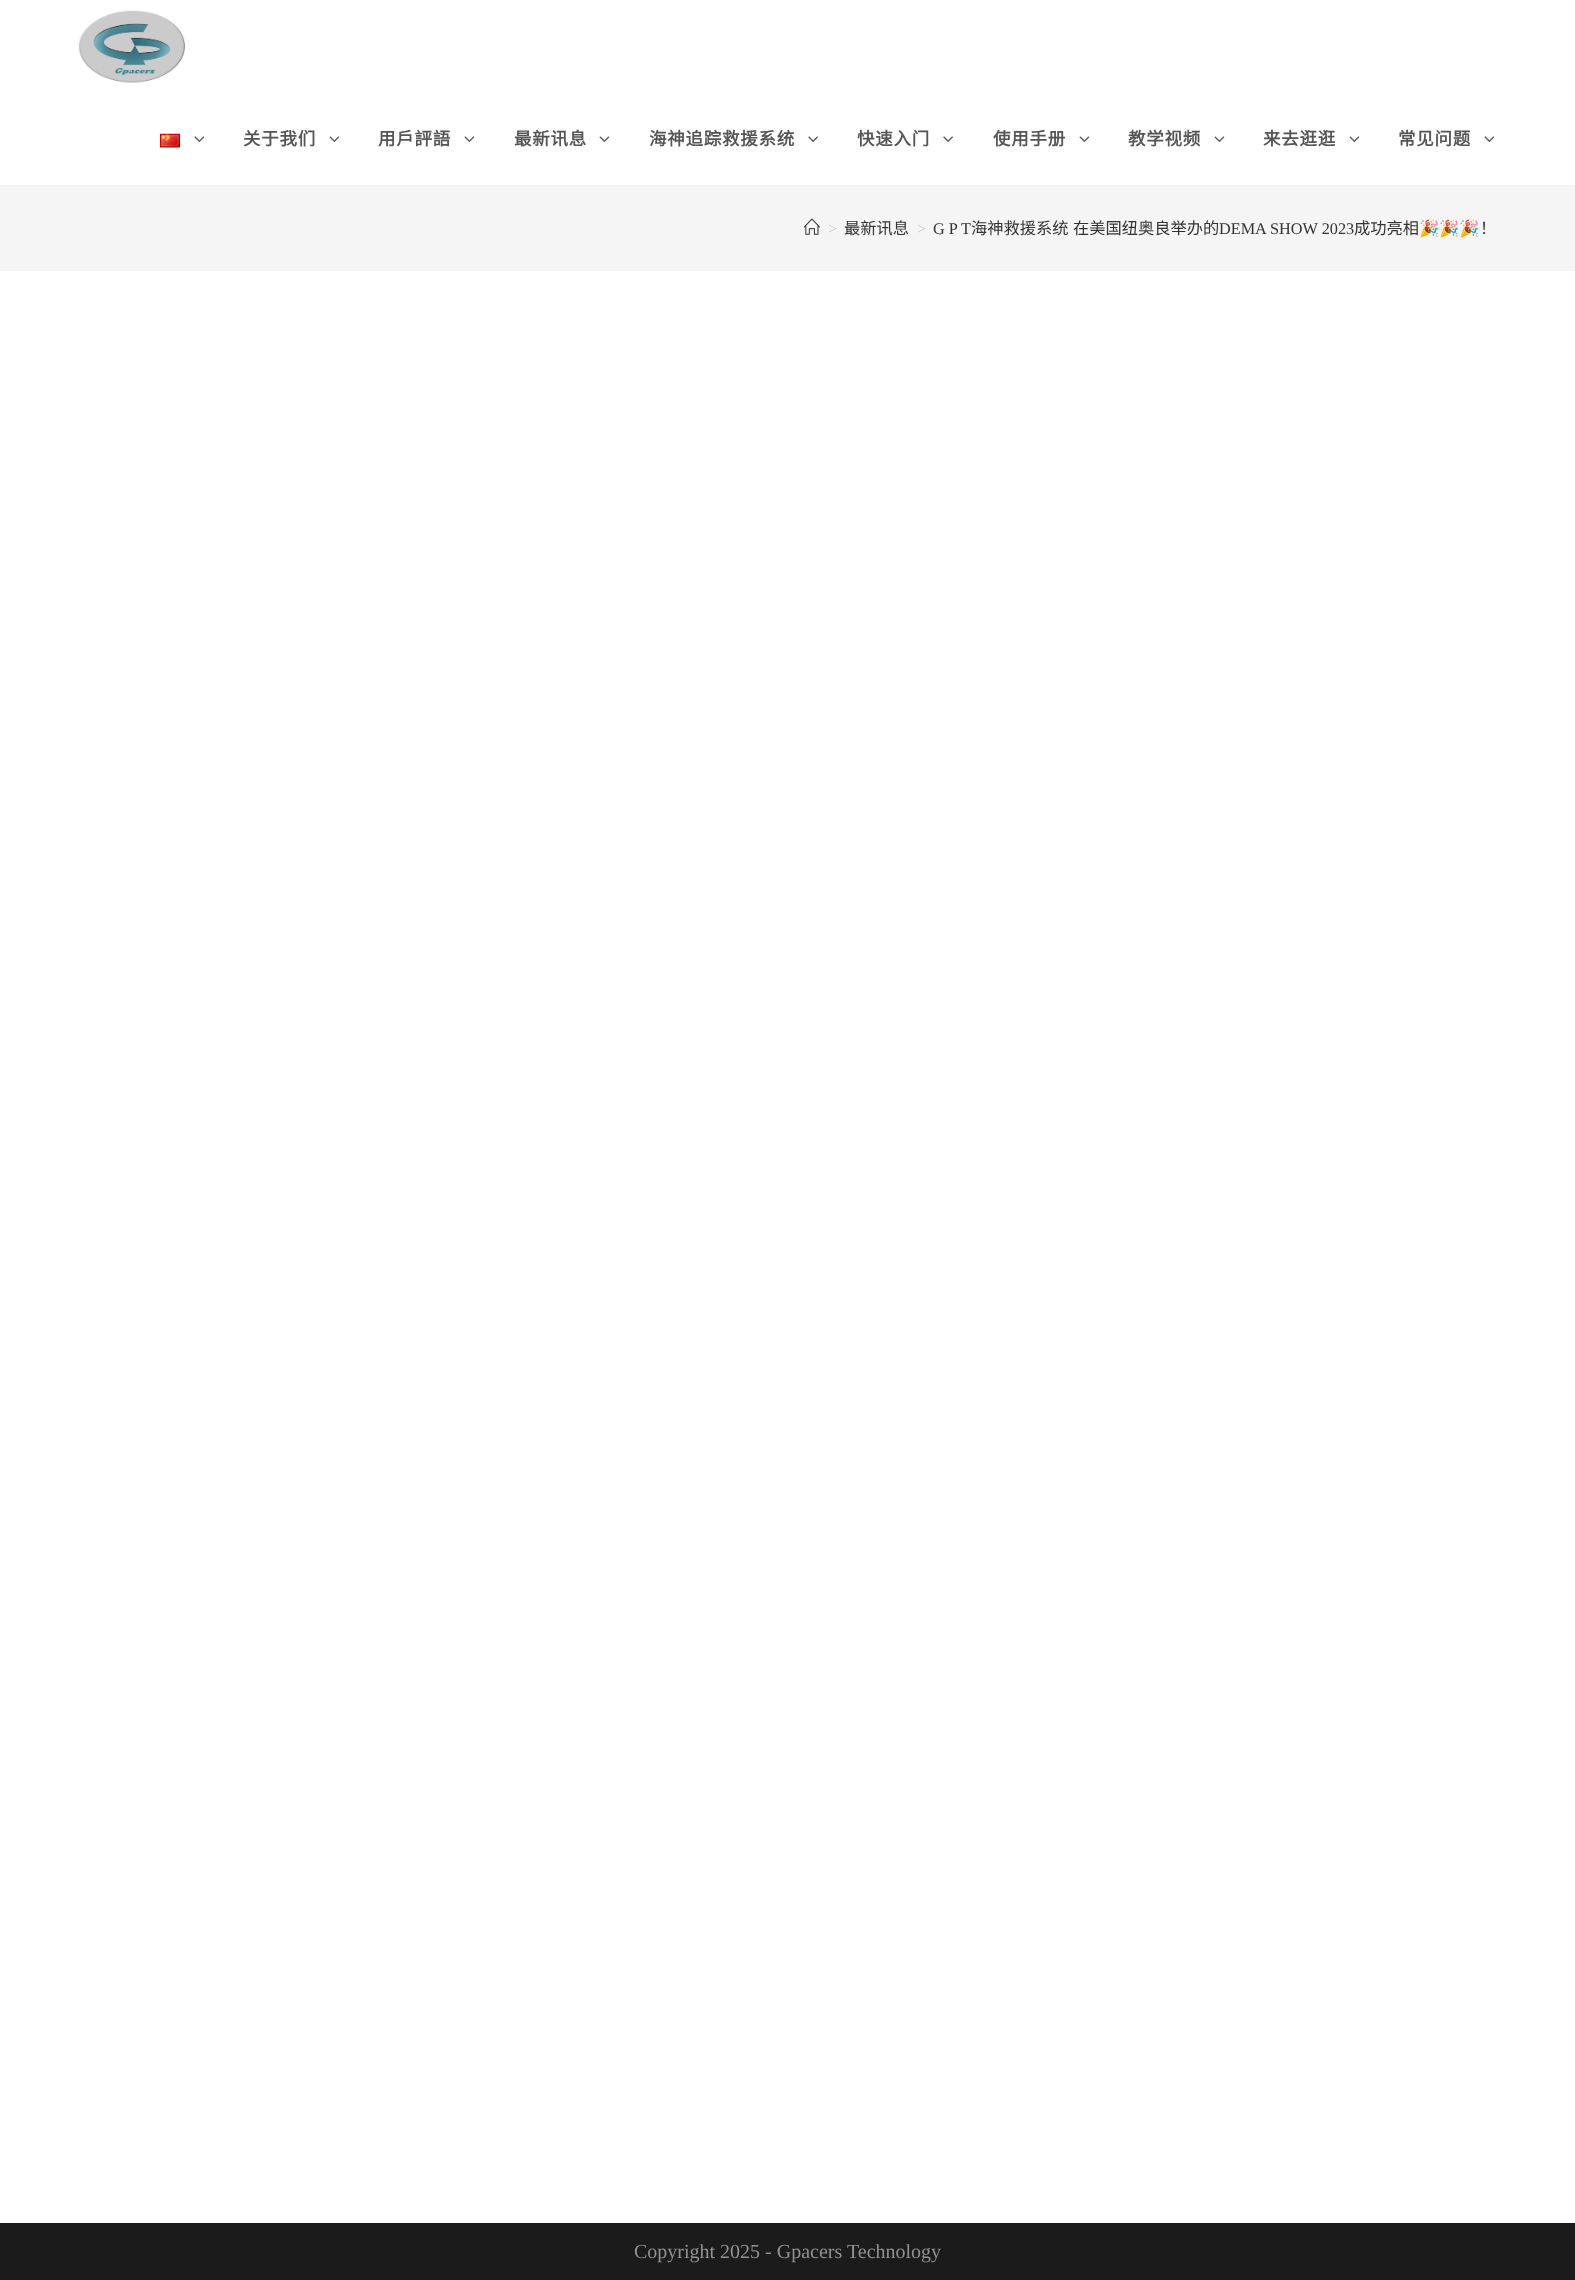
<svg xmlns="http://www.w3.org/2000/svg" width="1575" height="2280">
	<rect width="100%" height="100%" fill="#FFFFFF" />
	<rect x="0" y="185" width="1575" height="1" fill="#F1F1F1" />
	<image x="78" y="10" width="107" height="73" href="assets/img1.png" />
	<image x="160" y="133" width="20" height="15" href="assets/img2.png" />
	<image x="194" y="136" width="11" height="6" href="assets/img3.png" />
	<text x="243" y="145" font-family="Noto Sans CJK SC" font-size="17.5" font-weight="700" letter-spacing="0.75" fill="#555555">关于我们</text>
	<image x="329" y="136" width="11" height="6" href="assets/img3.png" />
	<text x="378" y="145" font-family="Noto Sans CJK SC" font-size="17.5" font-weight="700" letter-spacing="0.75" fill="#555555">用戶評語</text>
	<image x="464" y="136" width="11" height="6" href="assets/img3.png" />
	<text x="514" y="145" font-family="Noto Sans CJK SC" font-size="17.5" font-weight="700" letter-spacing="0.75" fill="#555555">最新讯息</text>
	<image x="599" y="136" width="11" height="6" href="assets/img3.png" />
	<text x="649" y="145" font-family="Noto Sans CJK SC" font-size="17.5" font-weight="700" letter-spacing="0.75" fill="#555555">海神追踪救援系统</text>
	<image x="808" y="136" width="10" height="6" href="assets/img4.png" />
	<text x="857" y="145" font-family="Noto Sans CJK SC" font-size="17.5" font-weight="700" letter-spacing="0.75" fill="#555555">快速入门</text>
	<image x="943" y="136" width="10" height="6" href="assets/img4.png" />
	<text x="993" y="145" font-family="Noto Sans CJK SC" font-size="17.5" font-weight="700" letter-spacing="0.75" fill="#555555">使用手册</text>
	<image x="1079" y="136" width="11" height="6" href="assets/img3.png" />
	<text x="1128" y="145" font-family="Noto Sans CJK SC" font-size="17.5" font-weight="700" letter-spacing="0.75" fill="#555555">教学视频</text>
	<image x="1214" y="136" width="11" height="6" href="assets/img3.png" />
	<text x="1263" y="145" font-family="Noto Sans CJK SC" font-size="17.5" font-weight="700" letter-spacing="0.75" fill="#555555">来去逛逛</text>
	<image x="1349" y="136" width="11" height="6" href="assets/img3.png" />
	<text x="1398" y="145" font-family="Noto Sans CJK SC" font-size="17.5" font-weight="700" letter-spacing="0.75" fill="#555555">常见问题</text>
	<image x="1484" y="136" width="11" height="6" href="assets/img3.png" />
	<rect x="0" y="186" width="1575" height="85" fill="#F5F5F5" />
	<image x="804" y="218" width="16" height="17" href="assets/img5.png" />
	<text x="828" y="234" font-family="Liberation Serif" font-size="16.25" fill="#C6C6C6">&gt;</text>
	<text x="844" y="234" font-family="Noto Sans CJK SC" font-size="16.25" fill="#333333">最新讯息</text>
	<text x="917" y="234" font-family="Liberation Serif" font-size="16.25" fill="#C6C6C6">&gt;</text>
	<text x="933" y="234" font-family="Liberation Serif" font-size="16.25" fill="#333333">G P T</text>
	<g font-family="Noto Sans CJK SC" font-size="16.25" fill="#333333">
		<text x="971" y="234">海神救援系统</text>
		<text x="1073" y="234">在美国纽奥良举办的</text>
	</g>
	<text x="1219" y="234" font-family="Liberation Serif" font-size="16.25" fill="#333333">DEMA SHOW 2023</text>
	<text x="1354" y="234" font-family="Noto Sans CJK SC" font-size="16.25" fill="#333333">成功亮相</text>
	<text x="1419" y="234" font-family="Noto Color Emoji" font-size="16.25" fill="#333333">🎉🎉🎉</text>
	<text x="1480" y="234" font-family="Noto Sans CJK SC" font-size="16.25" fill="#333333">！</text>
	<rect x="0" y="2223" width="1575" height="57" fill="#1B1B1B" />
	<text x="634" y="2258" font-family="Liberation Serif" font-size="20" fill="#929292">Copyright 2025 - Gpacers Technology</text>
</svg>
